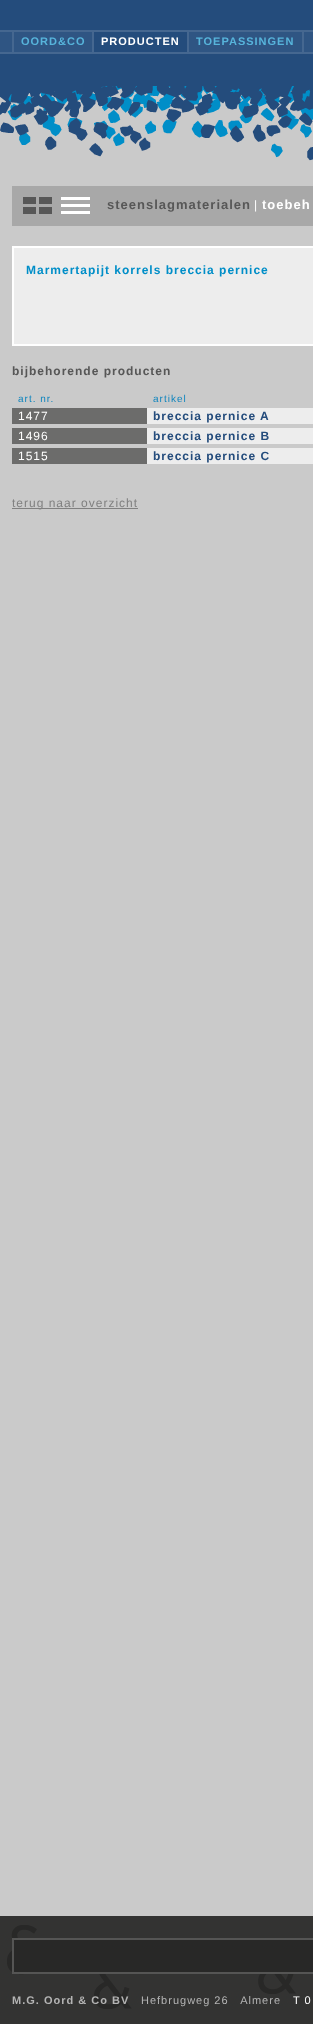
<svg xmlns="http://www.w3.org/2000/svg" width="313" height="2024">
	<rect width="100%" height="100%" fill="#CACACA" />
	<image x="0" y="0" width="313" height="161" href="assets/img1.png" />
	<rect x="0" y="32" width="313" height="20" fill="#2F5583" />
	<rect x="0" y="30" width="313" height="2" fill="#456790" />
	<rect x="0" y="52" width="313" height="2" fill="#456790" />
	<rect x="92" y="32" width="2" height="20" fill="#456790" />
	<rect x="12" y="32" width="2" height="20" fill="#456790" />
	<text x="21" y="45" font-family="Liberation Sans" font-size="11" font-weight="700" letter-spacing="1" fill="#57B4DB">OORD&amp;CO</text>
	<rect x="94" y="32" width="93" height="20" fill="#244C7C" />
	<rect x="187" y="32" width="2" height="20" fill="#456790" />
	<text x="101" y="45" font-family="Liberation Sans" font-size="11" font-weight="700" letter-spacing="1" fill="#FFFFFF">PRODUCTEN</text>
	<rect x="302" y="32" width="2" height="20" fill="#456790" />
	<text x="196" y="45" font-family="Liberation Sans" font-size="11" font-weight="700" letter-spacing="1" fill="#57B4DB">TOEPASSINGEN</text>
	<rect x="12" y="186" width="301" height="40" fill="#A8A8A8" />
	<image x="23" y="197" width="29" height="17" href="assets/img2.png" />
	<image x="61" y="197" width="29" height="17" href="assets/img3.png" />
	<text x="107" y="209" font-family="Liberation Sans" font-size="13" font-weight="700" letter-spacing="1" fill="#575757">steenslagmaterialen</text>
	<text x="254" y="209" font-family="Liberation Sans" font-size="12" letter-spacing="1" fill="#FFFFFF">|</text>
	<text x="262" y="209" font-family="Liberation Sans" font-size="13" font-weight="700" letter-spacing="1" fill="#FFFFFF">toebeh</text>
	<rect x="13" y="247" width="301" height="98" fill="#EDEDED" stroke="#FFFFFF" stroke-width="2" />
	<text x="26" y="274" font-family="Liberation Sans" font-size="12" font-weight="700" letter-spacing="1" fill="#008EC8">Marmertapijt korrels breccia pernice</text>
	<text x="12" y="375" font-family="Liberation Sans" font-size="12" font-weight="700" letter-spacing="1" fill="#575757">bijbehorende producten</text>
	<g font-family="Liberation Sans" font-size="10" letter-spacing="1" fill="#1085BE">
		<text x="18" y="402">art. nr.</text>
		<text x="153" y="402">artikel</text>
	</g>
	<rect x="12" y="408" width="135" height="16" fill="#6C6C6B" />
	<text x="18" y="420" font-family="Liberation Sans" font-size="12" letter-spacing="1" fill="#FFFFFF">1477</text>
	<rect x="147" y="408" width="166" height="16" fill="#EDEDED" />
	<text x="153" y="420" font-family="Liberation Sans" font-size="12" font-weight="700" letter-spacing="1" fill="#244C7C">breccia pernice A</text>
	<rect x="12" y="428" width="135" height="16" fill="#6C6C6B" />
	<text x="18" y="440" font-family="Liberation Sans" font-size="12" letter-spacing="1" fill="#FFFFFF">1496</text>
	<rect x="147" y="428" width="166" height="16" fill="#EDEDED" />
	<text x="153" y="440" font-family="Liberation Sans" font-size="12" font-weight="700" letter-spacing="1" fill="#244C7C">breccia pernice B</text>
	<rect x="12" y="448" width="135" height="16" fill="#6C6C6B" />
	<text x="18" y="460" font-family="Liberation Sans" font-size="12" letter-spacing="1" fill="#FFFFFF">1515</text>
	<rect x="147" y="448" width="166" height="16" fill="#EDEDED" />
	<text x="153" y="460" font-family="Liberation Sans" font-size="12" font-weight="700" letter-spacing="1" fill="#244C7C">breccia pernice C</text>
	<rect x="12" y="508" width="126" height="1" fill="#808080" />
	<text x="12" y="507" font-family="Liberation Sans" font-size="12" letter-spacing="1" fill="#808080">terug naar overzicht</text>
	<rect x="0" y="1916" width="313" height="108" fill="#333332" />
	<image x="7" y="1925" width="289" height="84" href="assets/img4.png" />
	<rect x="13" y="1939" width="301" height="34" fill="#282827" stroke="#555554" stroke-width="2" />
	<text x="12" y="2004" font-family="Liberation Sans" font-size="11" font-weight="700" letter-spacing="1" fill="#B4B4B4">M.G. Oord &amp; Co BV</text>
	<text x="141" y="2004" font-family="Liberation Sans" font-size="11" letter-spacing="1" fill="#B4B4B4" xml:space="preserve">Hefbrugweg 26   Almere</text>
	<text x="293" y="2004" font-family="Liberation Sans" font-size="11" letter-spacing="1" fill="#FFFFFF">T 0</text>
</svg>
